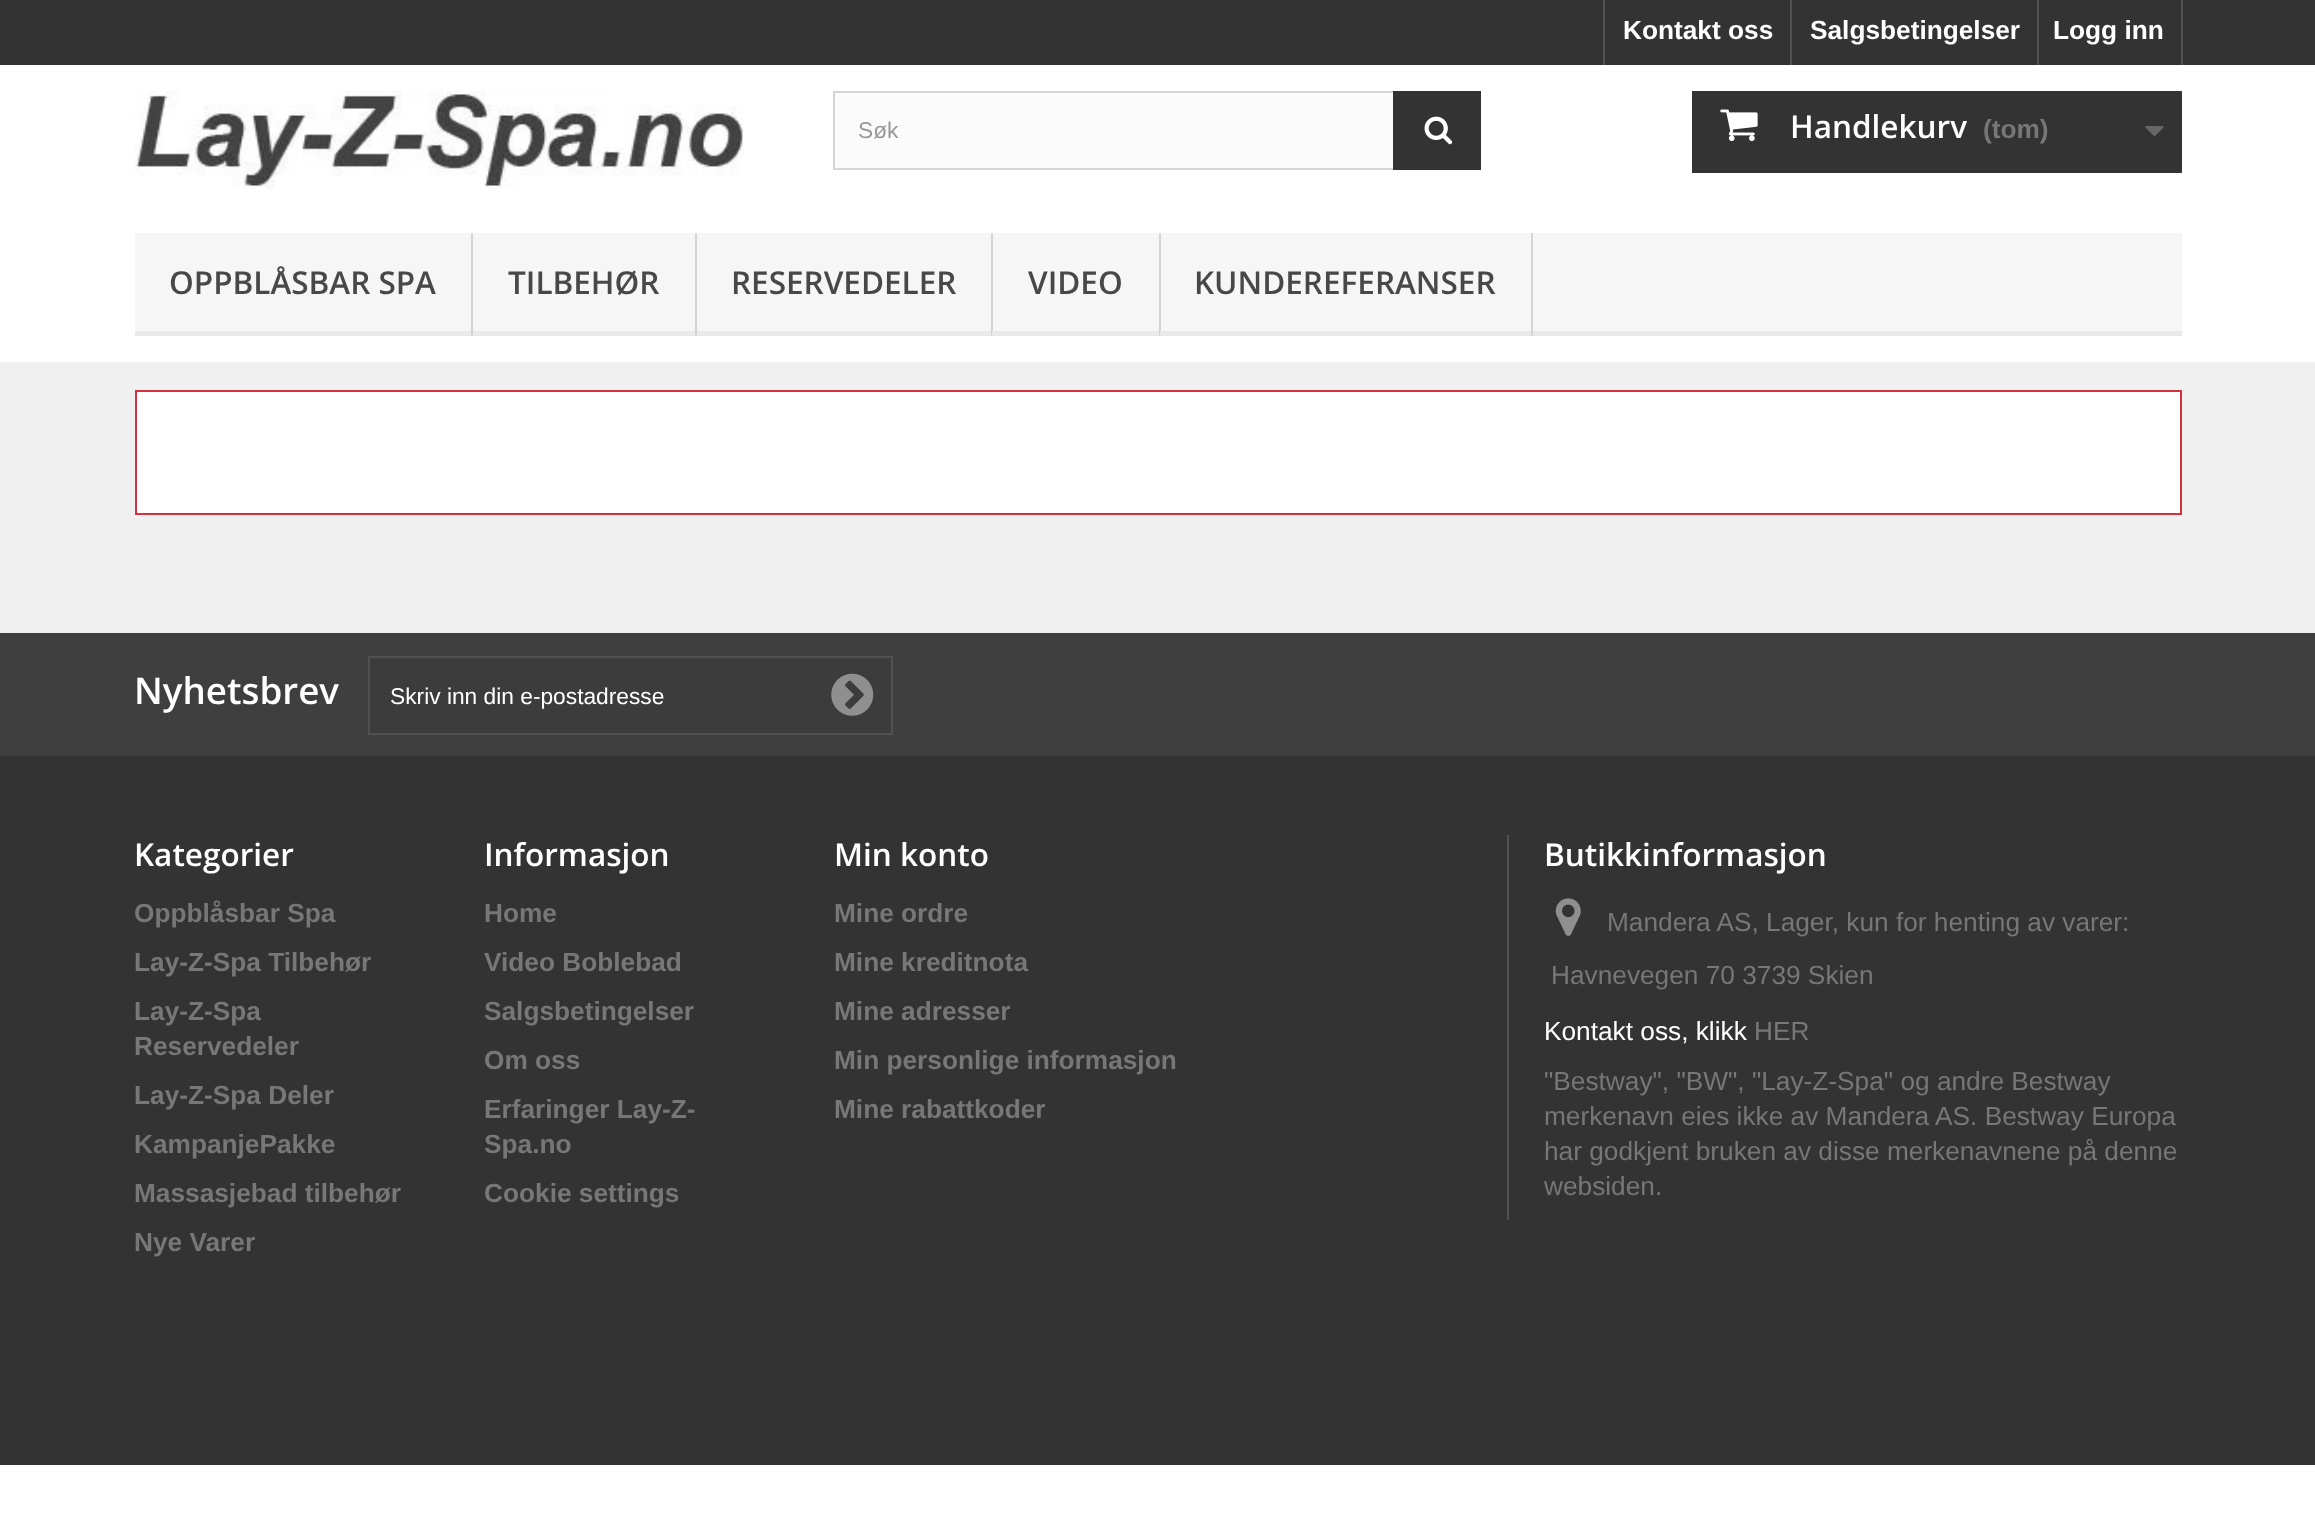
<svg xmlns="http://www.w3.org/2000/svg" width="2315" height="1530">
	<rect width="100%" height="100%" fill="#FFFFFF" />
	<rect x="0" y="0" width="2315" height="65" fill="#333333" />
	<rect x="1603" y="0" width="2" height="65" fill="#515151" />
	<text x="1623" y="39" font-family="Liberation Sans" font-size="26.25" font-weight="700" fill="#FFFFFF">Kontakt oss</text>
	<rect x="1790" y="0" width="2" height="65" fill="#515151" />
	<text x="1810" y="39" font-family="Liberation Sans" font-size="26.25" font-weight="700" fill="#FFFFFF">Salgsbetingelser</text>
	<rect x="2181" y="0" width="2" height="65" fill="#515151" />
	<rect x="2037" y="0" width="2" height="65" fill="#515151" />
	<text x="2053" y="39" font-family="Liberation Sans" font-size="26.25" font-weight="700" fill="#FFFFFF">Logg inn</text>
	<image x="135" y="91" width="609" height="98" href="assets/img1.png" />
	<rect x="835" y="93" width="558" height="75" fill="#FBFBFB" />
	<rect x="834" y="92" width="646" height="77" fill="none" stroke="#D6D4D4" stroke-width="2" />
	<text x="858" y="138" font-family="Liberation Sans" font-size="22.75" fill="#999999">Søk</text>
	<rect x="1393" y="91" width="88" height="79" fill="#333333" />
	<image x="1424" y="116" width="29" height="29" href="assets/img2.png" />
	<rect x="1692" y="91" width="490" height="82" fill="#333333" />
	<image x="1720" y="109" width="38" height="33" href="assets/img3.png" />
	<text x="1790" y="138" font-family="Open Sans" font-size="31.5" font-weight="600" fill="#FFFFFF">Handlekurv</text>
	<text x="1983" y="138" font-family="Liberation Sans" font-size="26.25" font-weight="700" fill="#777777">(tom)</text>
	<image x="2145" y="126" width="19" height="10" href="assets/img4.png" />
	<rect x="135" y="233" width="2047" height="98" fill="#F6F6F6" />
	<rect x="135" y="331" width="2047" height="5" fill="#E9E9E9" />
	<rect x="471" y="233" width="2" height="103" fill="#D6D4D4" />
	<text x="169" y="294" font-family="Open Sans" font-size="31.5" font-weight="600" fill="#484848">OPPBLÅSBAR SPA</text>
	<rect x="695" y="233" width="2" height="103" fill="#D6D4D4" />
	<text x="508" y="294" font-family="Open Sans" font-size="31.5" font-weight="600" fill="#484848">TILBEHØR</text>
	<rect x="991" y="233" width="2" height="103" fill="#D6D4D4" />
	<text x="731" y="294" font-family="Open Sans" font-size="31.5" font-weight="600" fill="#484848">RESERVEDELER</text>
	<rect x="1159" y="233" width="2" height="103" fill="#D6D4D4" />
	<rect x="992" y="331" width="1" height="5" fill="#E9E9E9" />
	<text x="1028" y="294" font-family="Open Sans" font-size="31.5" font-weight="600" fill="#484848">VIDEO</text>
	<rect x="1531" y="233" width="2" height="103" fill="#D6D4D4" />
	<rect x="1160" y="331" width="1" height="5" fill="#E9E9E9" />
	<text x="1194" y="294" font-family="Open Sans" font-size="31.5" font-weight="600" fill="#484848">KUNDEREFERANSER</text>
	<rect x="0" y="362" width="2315" height="271" fill="#F0F0F0" />
	<rect x="136" y="391" width="2045" height="123" fill="#FFFFFF" stroke="#D4323D" stroke-width="2" />
	<rect x="0" y="756" width="2315" height="709" fill="#333333" />
	<rect x="0" y="633" width="2315" height="123" fill="#3F3F3F" />
	<text x="134" y="704" font-family="Open Sans" font-size="36.75" font-weight="600" fill="#FFFFFF">Nyhetsbrev</text>
	<rect x="369" y="657" width="523" height="77" fill="#3C3C3C" stroke="#515151" stroke-width="2" />
	<text x="390" y="704" font-family="Liberation Sans" font-size="22.75" fill="#FFFFFF">Skriv inn din e-postadresse</text>
	<image x="831" y="673" width="43" height="43" href="assets/img5.png" />
	<text x="134" y="866" font-family="Open Sans" font-size="31.5" font-weight="600" fill="#FFFFFF">Kategorier</text>
	<g font-family="Liberation Sans" font-size="26.25" font-weight="700" fill="#777777">
		<text x="134" y="922">Oppblåsbar Spa</text>
		<text x="134" y="971">Lay-Z-Spa Tilbehør</text>
		<text x="134" y="1020">Lay-Z-Spa</text>
		<text x="134" y="1055">Reservedeler</text>
		<text x="134" y="1104">Lay-Z-Spa Deler</text>
		<text x="134" y="1153">KampanjePakke</text>
		<text x="134" y="1202">Massasjebad tilbehør</text>
		<text x="134" y="1251">Nye Varer</text>
	</g>
	<text x="484" y="866" font-family="Open Sans" font-size="31.5" font-weight="600" fill="#FFFFFF">Informasjon</text>
	<g font-family="Liberation Sans" font-size="26.25" font-weight="700" fill="#777777">
		<text x="484" y="922">Home</text>
		<text x="484" y="971">Video Boblebad</text>
		<text x="484" y="1020">Salgsbetingelser</text>
		<text x="484" y="1069">Om oss</text>
		<text x="484" y="1118">Erfaringer Lay-Z-</text>
		<text x="484" y="1153">Spa.no</text>
		<text x="484" y="1202">Cookie settings</text>
	</g>
	<text x="834" y="866" font-family="Open Sans" font-size="31.5" font-weight="600" fill="#FFFFFF">Min konto</text>
	<g font-family="Liberation Sans" font-size="26.25" font-weight="700" fill="#777777">
		<text x="834" y="922">Mine ordre</text>
		<text x="834" y="971">Mine kreditnota</text>
		<text x="834" y="1020">Mine adresser</text>
		<text x="834" y="1069">Min personlige informasjon</text>
		<text x="834" y="1118">Mine rabattkoder</text>
	</g>
	<rect x="1507" y="835" width="2" height="385" fill="#515151" />
	<text x="1544" y="866" font-family="Open Sans" font-size="31.5" font-weight="600" fill="#FFFFFF">Butikkinformasjon</text>
	<image x="1555" y="898" width="26" height="38" href="assets/img6.png" />
	<g font-family="Liberation Sans" font-size="26.25" fill="#777777">
		<text x="1607" y="931">Mandera AS, Lager, kun for henting av varer:</text>
		<text x="1551" y="984">Havnevegen 70 3739 Skien</text>
	</g>
	<text x="1544" y="1040" font-family="Liberation Sans" font-size="26.25" fill="#FFFFFF">Kontakt oss, klikk</text>
	<g font-family="Liberation Sans" font-size="26.25" fill="#777777">
		<text x="1754" y="1040">HER</text>
		<text x="1544" y="1090">"Bestway", "BW", "Lay-Z-Spa" og andre Bestway</text>
		<text x="1544" y="1125">merkenavn eies ikke av Mandera AS. Bestway Europa</text>
		<text x="1544" y="1160">har godkjent bruken av disse merkenavnene på denne</text>
		<text x="1544" y="1195">websiden.</text>
	</g>
</svg>
